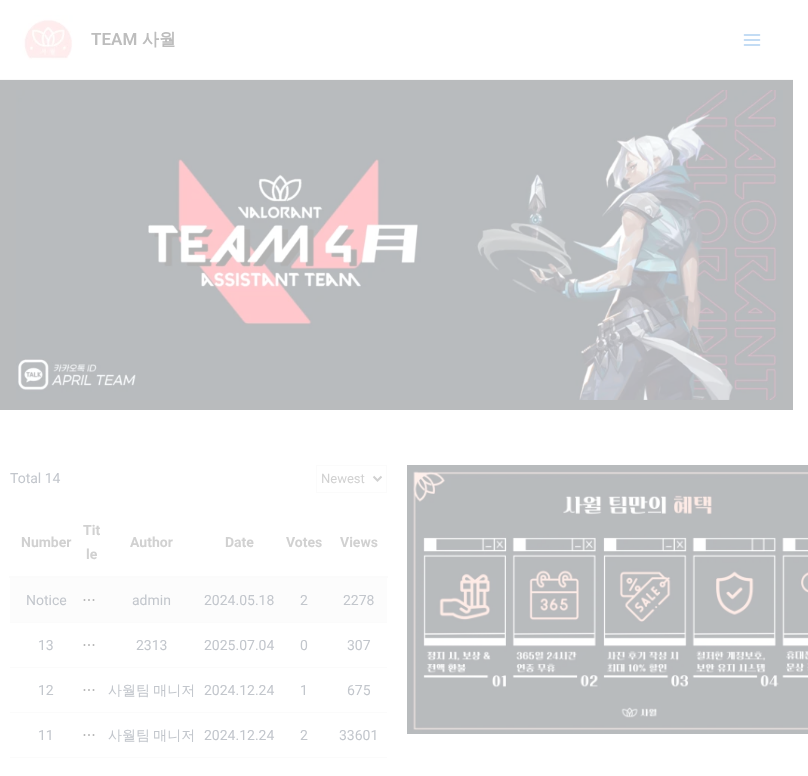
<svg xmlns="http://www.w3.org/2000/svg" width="808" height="776">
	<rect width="100%" height="100%" fill="#FFFFFF" />
	<rect x="0" y="79" width="793" height="1" fill="#F9F9F9" />
	<image x="20" y="15" width="53" height="45" href="assets/img1.png" />
	<text x="91" y="45" font-family="Roboto" font-size="17" font-weight="600" fill="#BDBDBD">TEAM</text>
	<text x="142" y="45" font-family="WenQuanYi Zen Hei" font-size="17" font-weight="700" fill="#BDBDBD">사월</text>
	<image x="743" y="34" width="18" height="12" href="assets/img2.png" />
	<rect x="0" y="80" width="793" height="330" fill="#B9BBBD" />
	<image x="16" y="90" width="767" height="310" href="assets/img3.png" />
	<text x="10" y="483" font-family="Roboto" font-size="14" fill="#C2C6CC">Total 14</text>
	<rect x="316.5" y="465.5" width="70" height="27" fill="none" stroke="#FBFBFB" />
	<path d="M373.5 476.5L377.5 480.5L381.5 476.5" fill="none" stroke="#D1D1D1" stroke-width="2" />
	<text x="321" y="483" font-family="Roboto" font-size="13" fill="#D1D1D1">Newest</text>
	<g font-family="Roboto" font-size="14" font-weight="700" fill="#D1D1D1">
		<text x="21" y="547">Number</text>
		<text x="83" y="535">Tit</text>
		<text x="86" y="559">le</text>
		<text x="130" y="547">Author</text>
		<text x="225" y="547">Date</text>
		<text x="286" y="547">Votes</text>
	</g>
	<rect x="9" y="576" width="379" height="2" fill="#FBFBFB" />
	<text x="340" y="547" font-family="Roboto" font-size="14" font-weight="700" fill="#D1D1D1">Views</text>
	<rect x="10" y="578" width="377" height="44" fill="#FCFCFC" />
	<text x="26" y="605" font-family="Roboto" font-size="14" fill="#C2C6CC">Notice</text>
	<text x="82" y="605" word-spacing="-1" font-family="WenQuanYi Zen Hei" font-size="14" font-weight="500" fill="#B3B3B3">…</text>
	<g font-family="Roboto" font-size="14" fill="#C2C6CC">
		<text x="132" y="605">admin</text>
		<text x="204" y="605">2024.05.18</text>
		<text x="300" y="605">2</text>
	</g>
	<rect x="10" y="622" width="377" height="1" fill="#FBFBFB" />
	<g font-family="Roboto" font-size="14" fill="#C2C6CC">
		<text x="343" y="605">2278</text>
		<text x="38" y="650">13</text>
	</g>
	<text x="82" y="650" word-spacing="-1" font-family="WenQuanYi Zen Hei" font-size="14" font-weight="500" fill="#B3B3B3">…</text>
	<g font-family="Roboto" font-size="14" fill="#C2C6CC">
		<text x="136" y="650">2313</text>
		<text x="204" y="650">2025.07.04</text>
		<text x="300" y="650">0</text>
	</g>
	<rect x="10" y="667" width="377" height="1" fill="#FBFBFB" />
	<g font-family="Roboto" font-size="14" fill="#C2C6CC">
		<text x="347" y="650">307</text>
		<text x="38" y="695">12</text>
	</g>
	<text x="82" y="695" word-spacing="-1" font-family="WenQuanYi Zen Hei" font-size="14" font-weight="500" fill="#B3B3B3">…</text>
	<text x="108" y="695" word-spacing="-1" font-family="WenQuanYi Zen Hei" font-size="14" font-weight="500" fill="#C2C6CC">사월팀 매니저</text>
	<g font-family="Roboto" font-size="14" fill="#C2C6CC">
		<text x="204" y="695">2024.12.24</text>
		<text x="300" y="695">1</text>
	</g>
	<rect x="10" y="712" width="377" height="1" fill="#FBFBFB" />
	<g font-family="Roboto" font-size="14" fill="#C2C6CC">
		<text x="347" y="695">675</text>
		<text x="38" y="740">11</text>
	</g>
	<text x="82" y="740" font-family="WenQuanYi Zen Hei" font-size="14" font-weight="500" fill="#B3B3B3">…</text>
	<text x="108" y="740" word-spacing="-1" font-family="WenQuanYi Zen Hei" font-size="14" font-weight="500" fill="#C2C6CC">사월팀 매니저</text>
	<g font-family="Roboto" font-size="14" fill="#C2C6CC">
		<text x="204" y="740">2024.12.24</text>
		<text x="300" y="740">2</text>
	</g>
	<rect x="10" y="757" width="377" height="1" fill="#FBFBFB" />
	<text x="339" y="740" font-family="Roboto" font-size="14" fill="#C2C6CC">33601</text>
	<image x="407" y="465" width="401" height="269" href="assets/img4.png" />
</svg>
